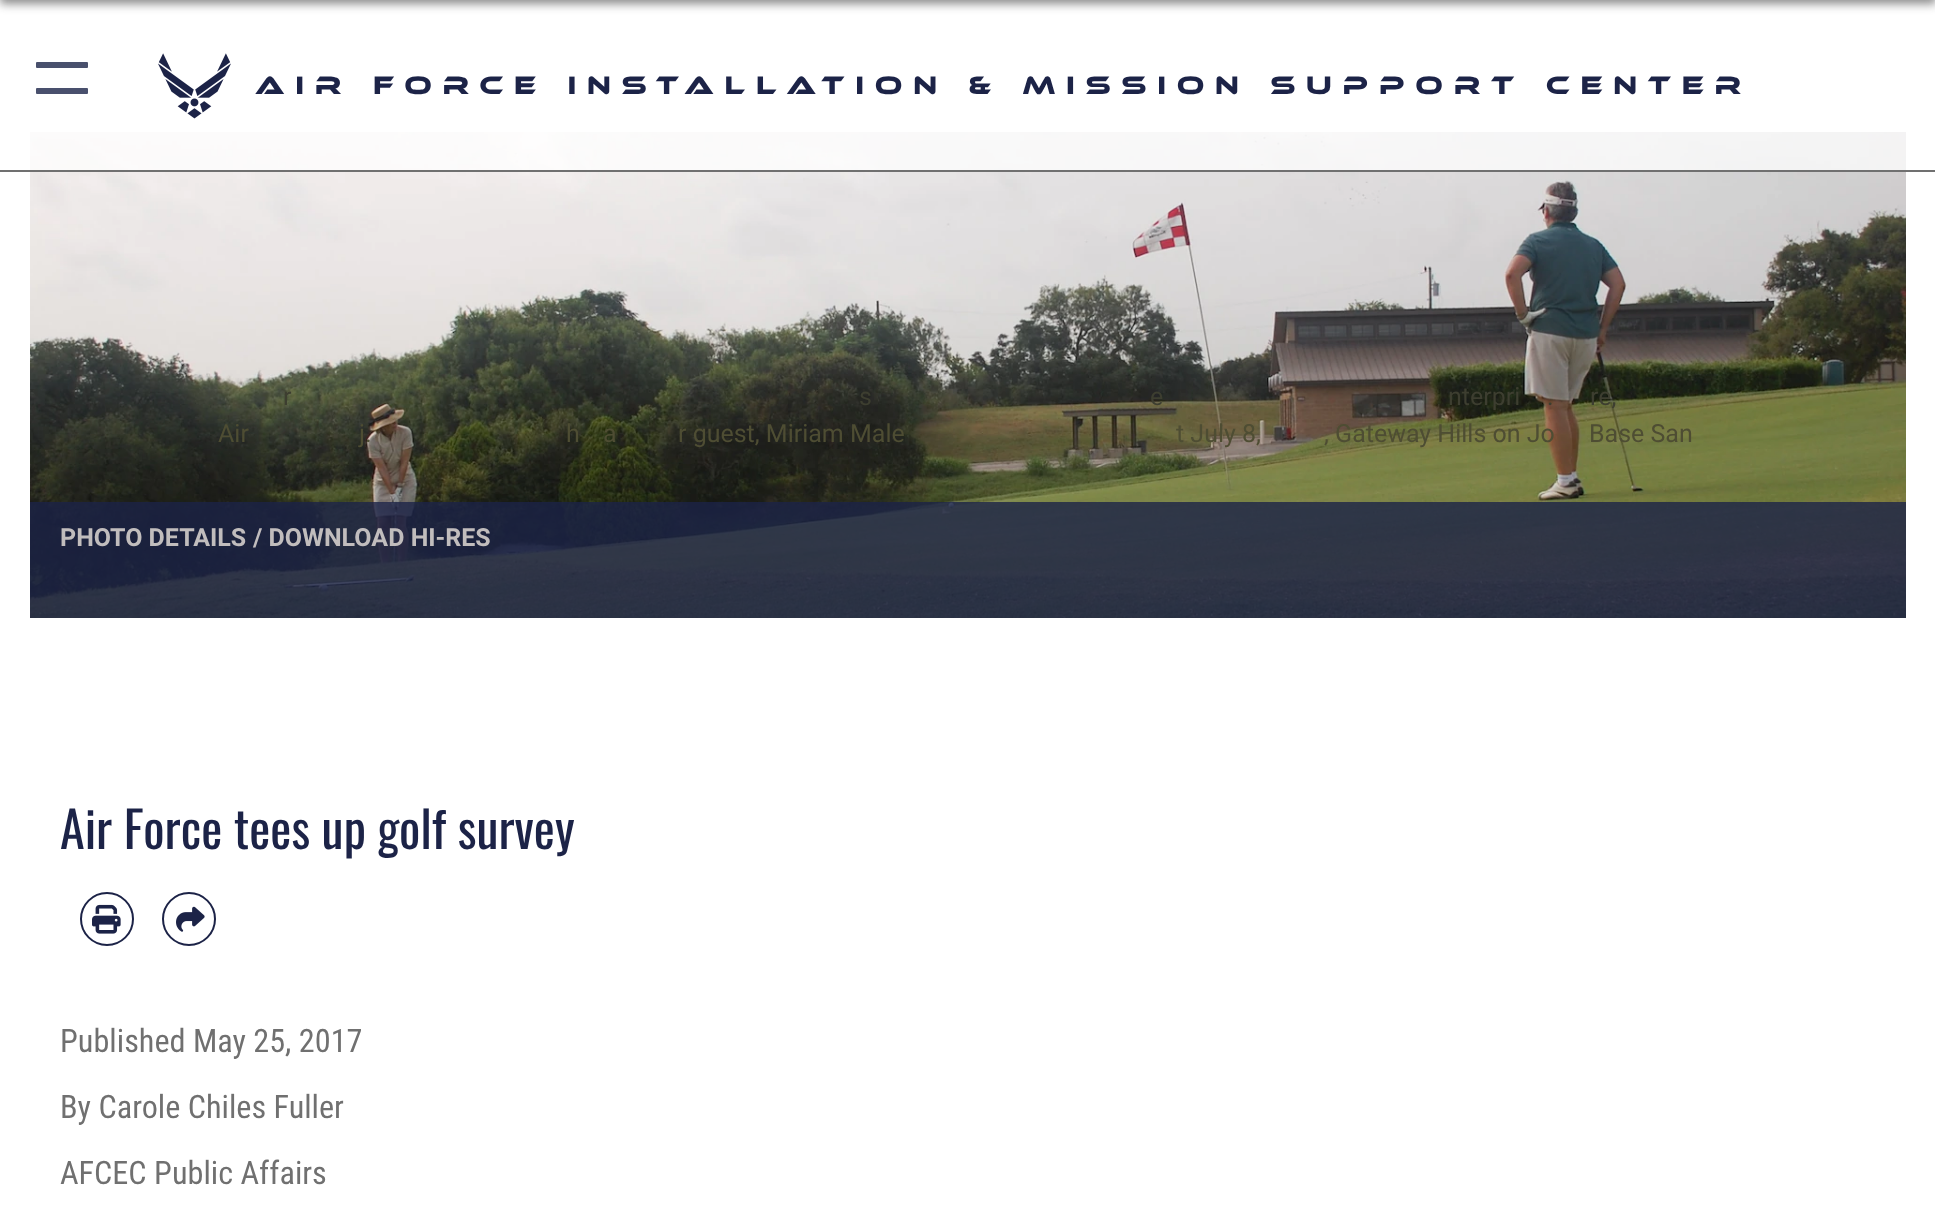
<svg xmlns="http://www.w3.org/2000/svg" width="1935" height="1213">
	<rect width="100%" height="100%" fill="#FFFFFF" />
	<rect x="0" y="-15" width="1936" height="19" fill="#1A1A1A" fill-opacity="0.5" filter="blur(5px)" />
	<image x="30" y="132" width="1876" height="486" href="assets/img2.png" />
	<rect x="30" y="132" width="1876" height="38" fill="#FFFFFF" fill-opacity="0.75" />
	<rect x="0" y="170" width="1935" height="2" fill="#707070" />
	<rect x="36" y="62" width="52" height="6" rx="1" fill="#49506D" />
	<rect x="36" y="88" width="52" height="6" rx="1" fill="#49506D" />
	<image x="158" y="53" width="73" height="66" href="assets/img1.png" />
	<text x="255" y="94" font-family="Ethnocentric" font-size="26" letter-spacing="10.75" fill="#1C2347">Air Force Installation &amp; Mission Support Center</text>
	<g font-family="Roboto" font-size="25" fill="#3D3E30">
		<text x="283" y="405">r</text>
		<text x="859" y="405">s</text>
		<text x="1150" y="405">e</text>
		<text x="1448" y="405">nterpri</text>
		<text x="1547" y="405">.</text>
		<text x="1590" y="405">re,</text>
	</g>
	<g font-family="Roboto" font-size="25" fill="#4E4D33">
		<text x="218" y="442">Air</text>
		<text x="359" y="442">j.</text>
		<text x="566" y="442">h</text>
		<text x="603" y="442">a</text>
		<text x="678" y="442">r guest, Miriam Male</text>
		<text x="1176" y="442">t July 8,</text>
		<text x="1324" y="442">, Gateway Hills on Jo</text>
		<text x="1589" y="442">Base San</text>
	</g>
	<rect x="30" y="502" width="1876" height="116" fill="#1C2347" fill-opacity="0.8" />
	<g font-family="Roboto" font-size="25" font-weight="700" fill="#C1BDBD">
		<text x="60" y="546">PHOTO DETAILS</text>
		<text x="253" y="546">/ DOWNLOAD HI-RES</text>
	</g>
	<text x="60" y="849" font-family="Oswald" font-size="50.1" fill="#1C2347">Air Force tees up golf survey</text>
	<circle cx="107" cy="919" r="26" fill="none" stroke="#1C2347" stroke-width="2" />
	<image x="92" y="904" width="29" height="30" href="assets/img3.png" />
	<circle cx="189" cy="919" r="26" fill="none" stroke="#1C2347" stroke-width="2" />
	<image x="176" y="906" width="29" height="26" href="assets/img4.png" />
	<g font-family="Roboto Condensed" font-size="32.25" fill="#707070">
		<text x="60" y="1052">Published May 25, 2017</text>
		<text x="60" y="1118">By Carole Chiles Fuller</text>
		<text x="60" y="1184">AFCEC Public Affairs</text>
	</g>
</svg>
